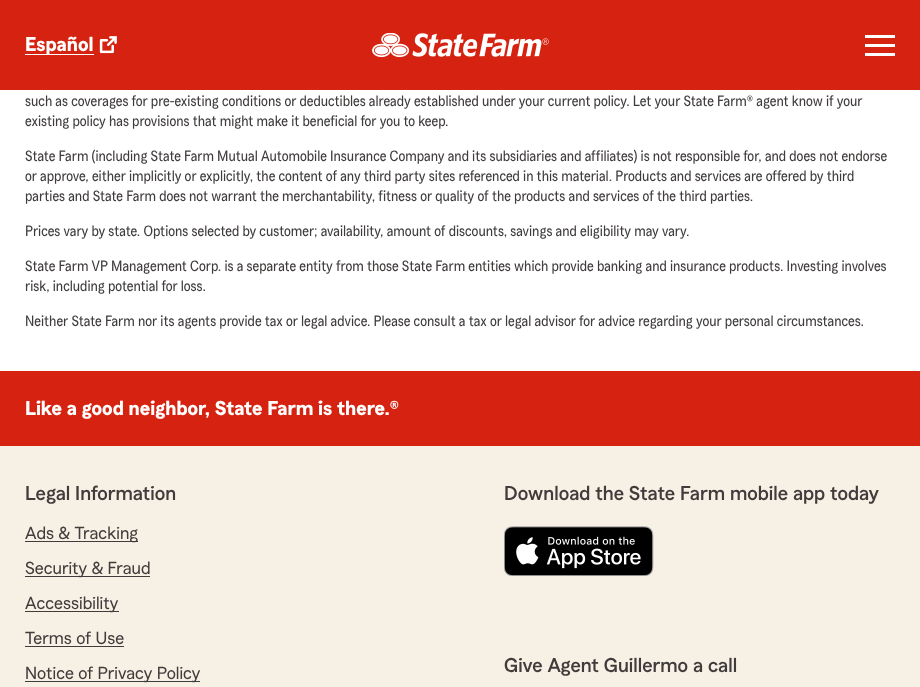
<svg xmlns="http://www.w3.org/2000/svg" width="920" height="687">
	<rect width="100%" height="100%" fill="#FFFFFF" />
	<rect x="0" y="0" width="920" height="90" fill="#D62311" />
	<rect x="25" y="54" width="69" height="1" fill="#FFFFFF" />
	<text x="25" y="51" font-family="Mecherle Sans" font-size="20" font-weight="700" fill="#FFFFFF">Español</text>
	<image x="99" y="36" width="18" height="18" href="assets/img1.png" />
	<image x="372" y="33" width="177" height="25" href="assets/img2.png" />
	<rect x="865" y="35" width="30" height="3" fill="#FFFFFF" />
	<rect x="865" y="44" width="30" height="3" fill="#FFFFFF" />
	<rect x="865" y="53" width="30" height="3" fill="#FFFFFF" />
	<g font-family="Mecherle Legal" font-size="15" fill="#403C3C">
		<text x="25" y="106">such as coverages for pre-existing conditions or deductibles already established under your current policy. Let your State Farm® agent know if your</text>
		<text x="25" y="126">existing policy has provisions that might make it beneficial for you to keep.</text>
		<text x="25" y="161">State Farm (including State Farm Mutual Automobile Insurance Company and its subsidiaries and affiliates) is not responsible for, and does not endorse</text>
		<text x="25" y="181">or approve, either implicitly or explicitly, the content of any third party sites referenced in this material. Products and services are offered by third</text>
		<text x="25" y="201">parties and State Farm does not warrant the merchantability, fitness or quality of the products and services of the third parties.</text>
		<text x="25" y="236">Prices vary by state. Options selected by customer; availability, amount of discounts, savings and eligibility may vary.</text>
		<text x="25" y="271">State Farm VP Management Corp. is a separate entity from those State Farm entities which provide banking and insurance products. Investing involves</text>
		<text x="25" y="291">risk, including potential for loss.</text>
		<text x="25" y="326">Neither State Farm nor its agents provide tax or legal advice. Please consult a tax or legal advisor for advice regarding your personal circumstances.</text>
	</g>
	<rect x="0" y="446" width="920" height="241" fill="#F7F0E4" />
	<rect x="0" y="371" width="920" height="75" fill="#D62311" />
	<text x="25" y="415" font-family="Mecherle Sans" font-size="20" font-weight="700" fill="#FFFFFF">Like a good neighbor, State Farm is there.®</text>
	<text x="25" y="500" font-family="Mecherle Sans" font-size="20" font-weight="500" fill="#403C3C">Legal Information</text>
	<rect x="25" y="541" width="113" height="1" fill="#403C3C" />
	<text x="25" y="539" font-family="Mecherle Sans" font-size="17.5" fill="#403C3C">Ads &amp; Tracking</text>
	<rect x="25" y="576" width="125" height="1" fill="#403C3C" />
	<text x="25" y="574" font-family="Mecherle Sans" font-size="17.5" fill="#403C3C">Security &amp; Fraud</text>
	<rect x="25" y="611" width="94" height="1" fill="#403C3C" />
	<g font-family="Mecherle Sans" font-size="17.5" fill="#403C3C">
		<text x="25" y="609">Accessibility</text>
		<text x="25" y="644">Terms of Use</text>
	</g>
	<rect x="25" y="646" width="99" height="1" fill="#403C3C" />
	<rect x="25" y="681" width="175" height="1" fill="#403C3C" />
	<text x="25" y="679" font-family="Mecherle Sans" font-size="17.5" fill="#403C3C">Notice of Privacy Policy</text>
	<text x="504" y="500" font-family="Mecherle Sans" font-size="20" font-weight="500" fill="#403C3C">Download the State Farm mobile app today</text>
	<image x="504" y="526" width="150" height="50" href="assets/img3.png" />
	<text x="504" y="672" font-family="Mecherle Sans" font-size="20" font-weight="500" fill="#403C3C">Give Agent Guillermo a call</text>
</svg>
